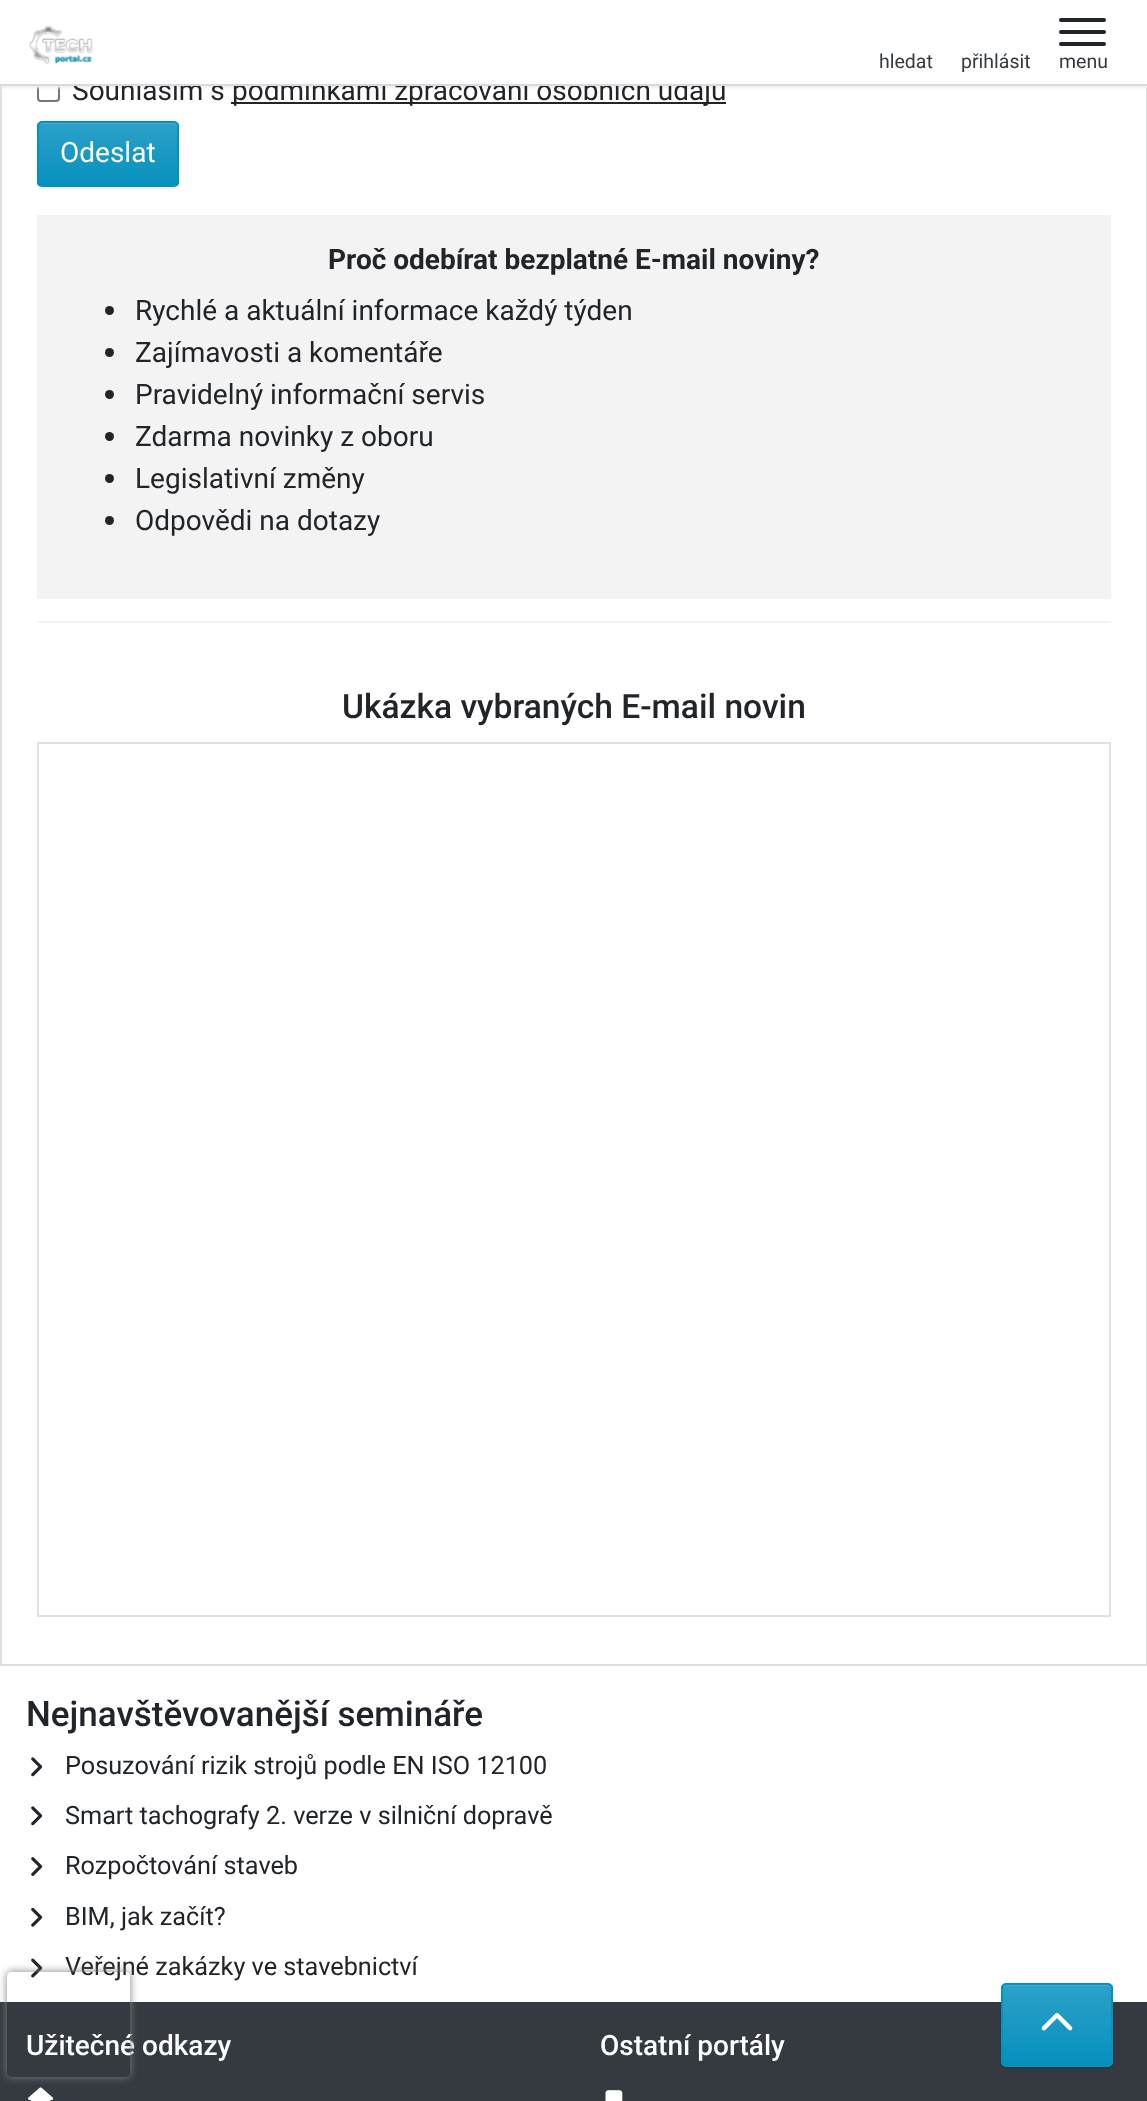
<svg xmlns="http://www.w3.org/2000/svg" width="1147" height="2101">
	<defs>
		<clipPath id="clip1"><rect x="37" y="121" width="142" height="66" rx="5" /></clipPath>
		<linearGradient id="g1" gradientUnits="userSpaceOnUse" x1="108" y1="123" x2="108" y2="186"><stop offset="0" stop-color="#2BA1C8" /><stop offset="1" stop-color="#0690BE" /></linearGradient>
		<clipPath id="clip2"><rect x="1001" y="1983" width="112" height="84" rx="5" /></clipPath>
		<linearGradient id="g2" gradientUnits="userSpaceOnUse" x1="1057" y1="1985" x2="1057" y2="2065"><stop offset="0" stop-color="#2BA1C8" /><stop offset="1" stop-color="#0690BE" /></linearGradient>
		<clipPath id="clip3"><path d="M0 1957H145V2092H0ZM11 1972H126C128 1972 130 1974 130 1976V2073C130 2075 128 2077 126 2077H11C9 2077 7 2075 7 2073V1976C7 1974 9 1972 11 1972Z" clip-rule="evenodd" /></clipPath>
	</defs>
	<rect width="100%" height="100%" fill="#FFFFFF" />
	<rect x="1" y="-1" width="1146" height="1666" fill="none" stroke="#DFDFDF" stroke-width="2" />
	<rect x="38" y="80" width="21" height="21" rx="3" fill="none" stroke="#767676" stroke-width="2" />
	<rect x="2" y="2" width="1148" height="86" fill="#EEEEEE" filter="blur(1px)" />
	<text x="72" y="100" font-family="Roboto" font-size="28" fill="#212529">Souhlasím s</text>
	<rect x="231" y="102" width="495" height="2" fill="#212529" />
	<text x="232" y="100" font-family="Roboto" font-size="28" fill="#212529">podmínkami zpracování osobních údajů</text>
	<rect x="0" y="0" width="1147" height="84" fill="#FFFFFF" />
	<rect x="0" y="84" width="1147" height="2" fill="#DADADA" />
	<image x="29" y="25" width="64" height="39" href="assets/img1.png" />
	<g font-family="Roboto" font-size="19.5" fill="#343A40">
		<text x="879" y="68">hledat</text>
		<text x="961" y="68">přihlásit</text>
	</g>
	<rect x="1059" y="18" width="47" height="4" rx="2" fill="#212529" />
	<rect x="1059" y="30" width="47" height="4" rx="2" fill="#212529" />
	<rect x="1059" y="42" width="47" height="4" rx="2" fill="#212529" />
	<text x="1059" y="68" font-family="Roboto" font-size="19.5" fill="#343A40">menu</text>
	<rect x="37" y="123" width="142" height="66" rx="5" fill="#000000" fill-opacity="0.07" filter="blur(1px)" />
	<g clip-path="url(#clip1)">
		<rect x="37" y="123" width="142" height="63" fill="url(#g1)" />
	</g>
	<path d="M42 124H173C175 124 177 126 177 128V127C177 125 175 123 173 123H43C42 123 40 124 40 125Z" fill="#4BAFD0" />
	<rect x="38" y="122" width="140" height="64" rx="4" fill="none" stroke="#0690BE" stroke-width="2" />
	<text x="60" y="162" font-family="Roboto" font-size="28" fill="#FFFFFF">Odeslat</text>
	<rect x="37" y="215" width="1074" height="384" fill="#F3F3F3" />
	<text x="328" y="269" font-family="Roboto" font-size="28" font-weight="700" fill="#212529">Proč odebírat bezplatné E-mail noviny?</text>
	<circle cx="109.5" cy="310.5" r="4.5" fill="#212529" />
	<text x="135" y="320" font-family="Roboto" font-size="28" fill="#212529">Rychlé a aktuální informace každý týden</text>
	<circle cx="109.5" cy="352.5" r="4.5" fill="#212529" />
	<text x="135" y="362" font-family="Roboto" font-size="28" fill="#212529">Zajímavosti a komentáře</text>
	<circle cx="109.5" cy="394.5" r="4.5" fill="#212529" />
	<text x="135" y="404" font-family="Roboto" font-size="28" fill="#212529">Pravidelný informační servis</text>
	<circle cx="109.5" cy="436.5" r="4.5" fill="#212529" />
	<text x="135" y="446" font-family="Roboto" font-size="28" fill="#212529">Zdarma novinky z oboru</text>
	<circle cx="109.5" cy="478.5" r="4.5" fill="#212529" />
	<text x="135" y="488" font-family="Roboto" font-size="28" fill="#212529">Legislativní změny</text>
	<circle cx="109.5" cy="520.5" r="4.5" fill="#212529" />
	<text x="135" y="530" font-family="Roboto" font-size="28" fill="#212529">Odpovědi na dotazy</text>
	<rect x="37" y="621" width="1074" height="2" fill="#F3F3F3" />
	<text x="342" y="718" font-family="Roboto" font-size="33.6" font-weight="500" fill="#212529">Ukázka vybraných E-mail novin</text>
	<rect x="38" y="743" width="1072" height="873" fill="none" stroke="#DEE2E6" stroke-width="2" />
	<text x="26" y="1726" font-family="Roboto" font-size="35" font-weight="500" fill="#212529">Nejnavštěvovanější semináře</text>
	<image x="31" y="1757" width="12" height="20" href="assets/img2.png" />
	<text x="65" y="1774" font-family="Roboto" font-size="25.25" fill="#212529">Posuzování rizik strojů podle EN ISO 12100</text>
	<image x="31" y="1806" width="12" height="20" href="assets/img2.png" />
	<text x="65" y="1824" font-family="Roboto" font-size="25.25" fill="#212529">Smart tachografy 2. verze v silniční dopravě</text>
	<image x="31" y="1857" width="12" height="19" href="assets/img3.png" />
	<text x="65" y="1874" font-family="Roboto" font-size="25.25" fill="#212529">Rozpočtování staveb</text>
	<image x="31" y="1907" width="12" height="20" href="assets/img4.png" />
	<text x="65" y="1925" font-family="Roboto" font-size="25.25" fill="#212529">BIM, jak začít?</text>
	<image x="31" y="1958" width="12" height="20" href="assets/img5.png" />
	<text x="65" y="1975" font-family="Roboto" font-size="25.25" fill="#212529">Veřejné zakázky ve stavebnictví</text>
	<rect x="0" y="2002" width="1147" height="99" fill="#343A40" />
	<text x="26" y="2055" font-family="Roboto" font-size="28" font-weight="500" fill="#FFFFFF">Užitečné odkazy</text>
	<image x="28" y="2087" width="26" height="14" href="assets/img6.png" />
	<text x="600" y="2055" font-family="Roboto" font-size="28" font-weight="500" fill="#FFFFFF">Ostatní portály</text>
	<image x="605" y="2090" width="18" height="11" href="assets/img7.png" />
	<rect x="1001" y="1985" width="112" height="84" rx="5" fill="#000000" fill-opacity="0.07" filter="blur(1px)" />
	<g clip-path="url(#clip2)">
		<rect x="1001" y="1985" width="112" height="80" fill="url(#g2)" />
	</g>
	<path d="M1006 1986H1108C1110 1986 1111 1988 1111 1990C1111 1981 1094 1985 1090 1985H1024C1020 1985 1003 1981 1003 1990C1003 1988 1004 1986 1006 1986Z" fill="#FFFFFF" fill-opacity="0.15" />
	<rect x="1002" y="1984" width="110" height="82" rx="4" fill="none" stroke="#0690BE" stroke-width="2" />
	<image x="1041" y="2013" width="32" height="18" href="assets/img8.png" />
	<g clip-path="url(#clip3)">
		<rect x="7" y="1972" width="123" height="105" rx="4" fill="#808080" filter="blur(4.5px)" />
	</g>
</svg>
